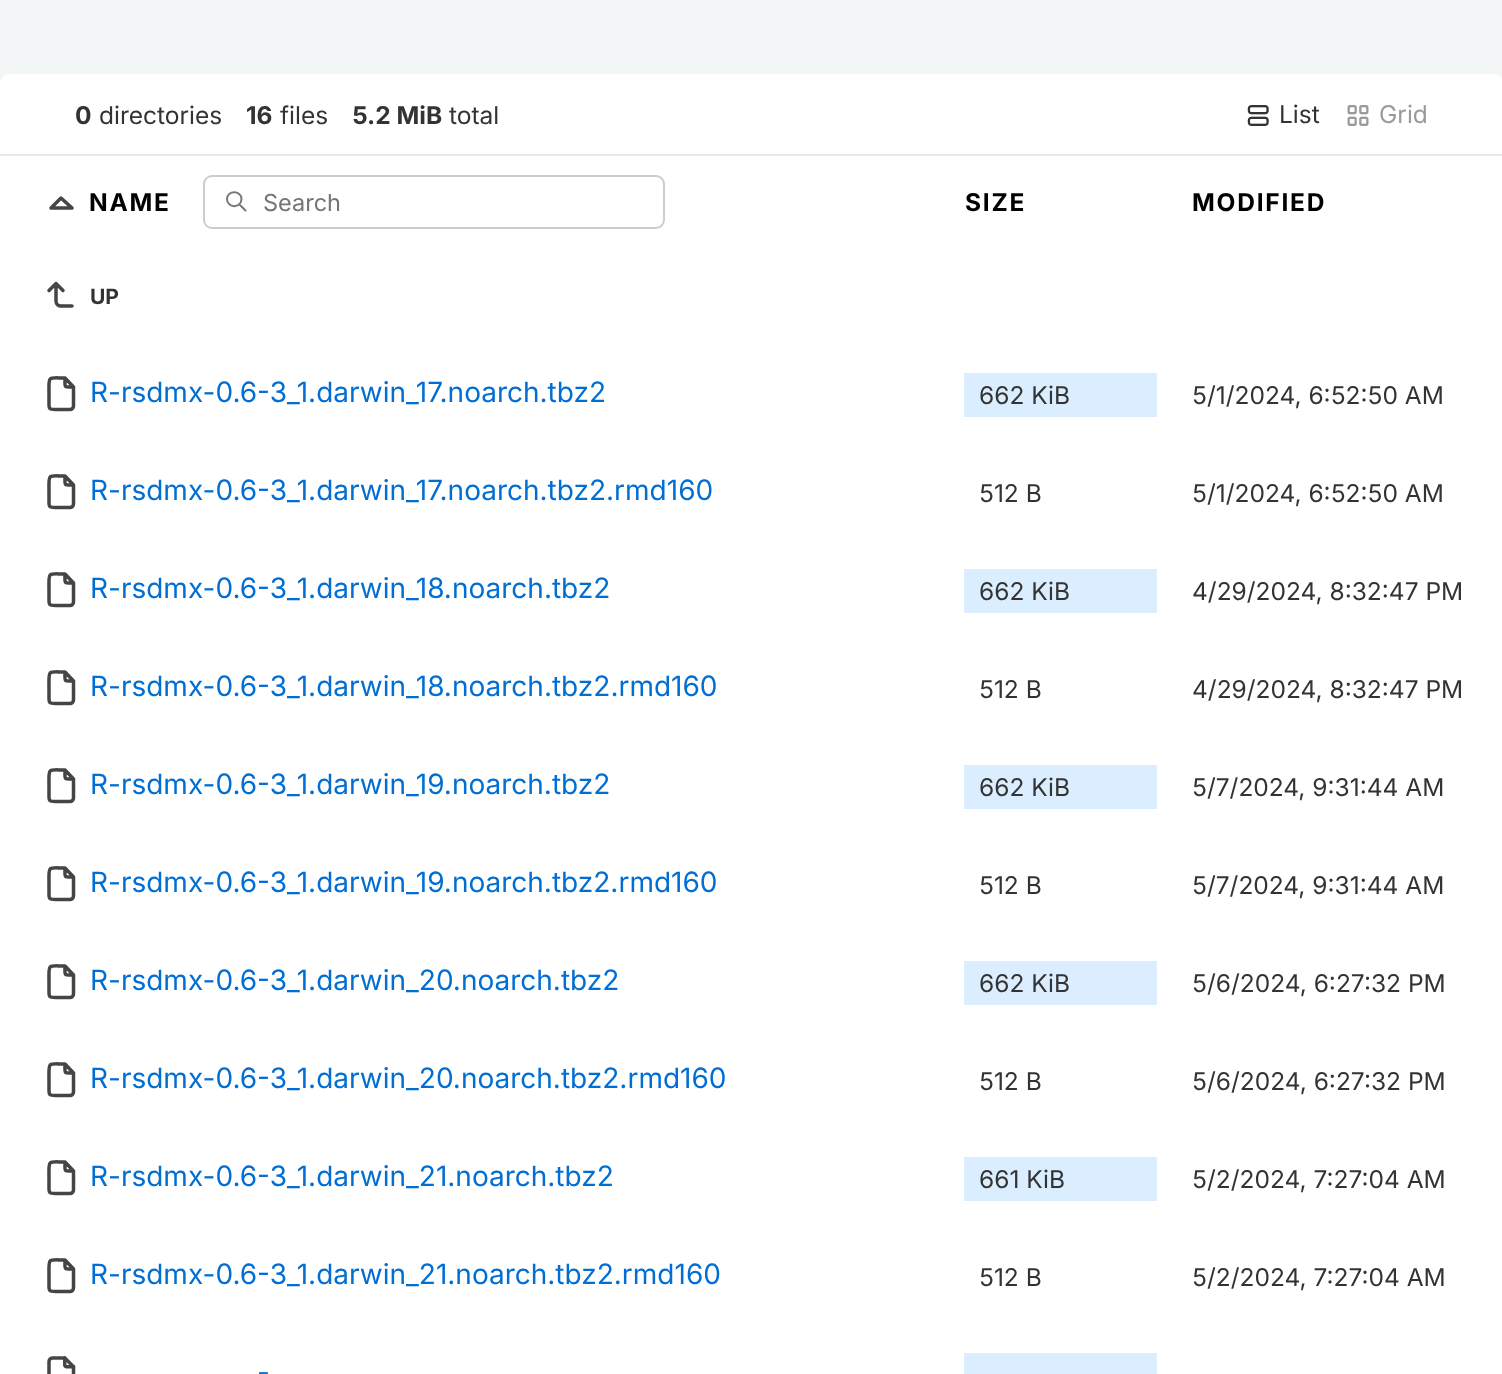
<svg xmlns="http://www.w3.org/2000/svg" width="1502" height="1374">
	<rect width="100%" height="100%" fill="#F3F6F7" />
	<rect x="0" y="74" width="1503" height="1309" rx="9" fill="#FFFFFF" />
	<rect x="0" y="154" width="1502" height="2" fill="#E5E9EA" />
	<text x="75" y="124" font-family="Inter" font-size="24.5" font-weight="700" fill="#333333">0</text>
	<text x="99" y="124" font-family="Inter" font-size="24.5" fill="#333333">directories</text>
	<text x="246" y="124" font-family="Inter" font-size="24.5" font-weight="700" fill="#333333">16</text>
	<text x="280" y="124" font-family="Inter" font-size="24.5" fill="#333333">files</text>
	<text x="352" y="124" font-family="Inter" font-size="24.5" font-weight="700" fill="#333333">5.2 MiB</text>
	<text x="449" y="124" font-family="Inter" font-size="24.5" fill="#333333">total</text>
	<image x="1247" y="105" width="22" height="21" href="assets/img1.png" />
	<text x="1279" y="123" font-family="Inter" font-size="24.5" fill="#333333">List</text>
	<image x="1347" y="105" width="22" height="21" href="assets/img2.png" />
	<text x="1379" y="123" font-family="Inter" font-size="24.5" fill="#9A9A9A">Grid</text>
	<path d="M72 208L61 198L51 208H72" fill="none" stroke="#454545" stroke-width="3.5" stroke-linecap="round" stroke-linejoin="round" />
	<text x="89" y="211" font-family="Inter" font-size="24.5" font-weight="700" letter-spacing="1.75" fill="#000000">NAME</text>
	<path d="M227 199C227 208.5 241.5 208.5 241.5 199C241.5 190 227 190 227 199M245.5 210.5L239.5 204.5" fill="none" stroke="#777777" stroke-width="2" stroke-linecap="round" stroke-linejoin="round" />
	<rect x="204" y="176" width="460" height="52" rx="8" fill="none" stroke="#CCCCCC" stroke-width="2" />
	<text x="263" y="211" font-family="Inter" font-size="23.5" fill="#757575">Search</text>
	<g font-family="Inter" font-size="24.5" font-weight="700" letter-spacing="1.75" fill="#000000">
		<text x="965" y="211">SIZE</text>
		<text x="1192" y="211">MODIFIED</text>
	</g>
	<path d="M72 306H61C58.5 306 56 304 56 301V283.5L49 290.5M63 290.5L56 283.5" fill="none" stroke="#454545" stroke-width="3.5" stroke-linecap="round" stroke-linejoin="round" />
	<text x="90" y="304" font-family="Inter" font-size="21" font-weight="700" fill="#333333">UP</text>
	<path d="M65 378C65 388 63.5 387 73.5 387M70 409.5H55.5C48.5 409.5 49 408.5 49 402V394C49 375 47 378 65 378L73.5 387V406C73.5 408 72 409.5 70 409.5Z" fill="none" stroke="#454545" stroke-width="3.5" stroke-linecap="round" stroke-linejoin="round" />
	<text x="90" y="402" font-family="Inter" font-size="28" fill="#006ED3">R-rsdmx-0.6-3_1.darwin_17.noarch.tbz2</text>
	<rect x="964" y="373" width="193" height="44" fill="#DBEEFF" />
	<g font-family="Inter" font-size="24.5" fill="#333333">
		<text x="979" y="404">662 KiB</text>
		<text x="1192" y="404">5/1/2024, 6:52:50 AM</text>
	</g>
	<path d="M65 476C65 486 63.5 485 73.5 485M70 507.5H55.5C48.5 507.5 49 506.5 49 500V492C49 473 47 476 65 476L73.5 485V504C73.5 506 72 507.5 70 507.5Z" fill="none" stroke="#454545" stroke-width="3.5" stroke-linecap="round" stroke-linejoin="round" />
	<text x="90" y="500" font-family="Inter" font-size="28" fill="#006ED3">R-rsdmx-0.6-3_1.darwin_17.noarch.tbz2.rmd160</text>
	<g font-family="Inter" font-size="24.5" fill="#333333">
		<text x="979" y="502">512 B</text>
		<text x="1192" y="502">5/1/2024, 6:52:50 AM</text>
	</g>
	<path d="M65 574C65 584 63.5 583 73.5 583M70 605.5H55.5C48.5 605.5 49 604.5 49 598V590C49 571 47 574 65 574L73.5 583V602C73.5 604 72 605.5 70 605.5Z" fill="none" stroke="#454545" stroke-width="3.5" stroke-linecap="round" stroke-linejoin="round" />
	<text x="90" y="598" font-family="Inter" font-size="28" fill="#006ED3">R-rsdmx-0.6-3_1.darwin_18.noarch.tbz2</text>
	<rect x="964" y="569" width="193" height="44" fill="#DBEEFF" />
	<g font-family="Inter" font-size="24.5" fill="#333333">
		<text x="979" y="600">662 KiB</text>
		<text x="1192" y="600">4/29/2024, 8:32:47 PM</text>
	</g>
	<path d="M65 672C65 682 63.5 681 73.5 681M70 703.5H55.5C48.5 703.5 49 702.5 49 696V688C49 669 47 672 65 672L73.5 681V700C73.5 702 72 703.5 70 703.5Z" fill="none" stroke="#454545" stroke-width="3.5" stroke-linecap="round" stroke-linejoin="round" />
	<text x="90" y="696" font-family="Inter" font-size="28" fill="#006ED3">R-rsdmx-0.6-3_1.darwin_18.noarch.tbz2.rmd160</text>
	<g font-family="Inter" font-size="24.5" fill="#333333">
		<text x="979" y="698">512 B</text>
		<text x="1192" y="698">4/29/2024, 8:32:47 PM</text>
	</g>
	<path d="M65 770C65 780 63.5 779 73.5 779M70 801.5H55.5C48.5 801.5 49 800.5 49 794V786C49 767 47 770 65 770L73.5 779V798C73.5 800 72 801.5 70 801.5Z" fill="none" stroke="#454545" stroke-width="3.5" stroke-linecap="round" stroke-linejoin="round" />
	<text x="90" y="794" font-family="Inter" font-size="28" fill="#006ED3">R-rsdmx-0.6-3_1.darwin_19.noarch.tbz2</text>
	<rect x="964" y="765" width="193" height="44" fill="#DBEEFF" />
	<g font-family="Inter" font-size="24.5" fill="#333333">
		<text x="979" y="796">662 KiB</text>
		<text x="1192" y="796">5/7/2024, 9:31:44 AM</text>
	</g>
	<path d="M65 868C65 878 63.5 877 73.5 877M70 899.5H55.5C48.5 899.5 49 898.5 49 892V884C49 865 47 868 65 868L73.5 877V896C73.5 898 72 899.5 70 899.5Z" fill="none" stroke="#454545" stroke-width="3.5" stroke-linecap="round" stroke-linejoin="round" />
	<text x="90" y="892" font-family="Inter" font-size="28" fill="#006ED3">R-rsdmx-0.6-3_1.darwin_19.noarch.tbz2.rmd160</text>
	<g font-family="Inter" font-size="24.5" fill="#333333">
		<text x="979" y="894">512 B</text>
		<text x="1192" y="894">5/7/2024, 9:31:44 AM</text>
	</g>
	<path d="M65 966C65 976 63.5 975 73.5 975M70 997.5H55.5C48.5 997.5 49 996.5 49 990V982C49 963 47 966 65 966L73.5 975V994C73.5 996 72 997.5 70 997.5Z" fill="none" stroke="#454545" stroke-width="3.5" stroke-linecap="round" stroke-linejoin="round" />
	<text x="90" y="990" font-family="Inter" font-size="28" fill="#006ED3">R-rsdmx-0.6-3_1.darwin_20.noarch.tbz2</text>
	<rect x="964" y="961" width="193" height="44" fill="#DBEEFF" />
	<g font-family="Inter" font-size="24.5" fill="#333333">
		<text x="979" y="992">662 KiB</text>
		<text x="1192" y="992">5/6/2024, 6:27:32 PM</text>
	</g>
	<path d="M65 1064C65 1074 63.5 1073 73.5 1073M70 1095.5H55.5C48.5 1095.5 49 1094.5 49 1088V1080C49 1061 47 1064 65 1064L73.5 1073V1092C73.5 1094 72 1095.5 70 1095.5Z" fill="none" stroke="#454545" stroke-width="3.5" stroke-linecap="round" stroke-linejoin="round" />
	<text x="90" y="1088" font-family="Inter" font-size="28" fill="#006ED3">R-rsdmx-0.6-3_1.darwin_20.noarch.tbz2.rmd160</text>
	<g font-family="Inter" font-size="24.5" fill="#333333">
		<text x="979" y="1090">512 B</text>
		<text x="1192" y="1090">5/6/2024, 6:27:32 PM</text>
	</g>
	<path d="M65 1162C65 1172 63.5 1171 73.5 1171M70 1193.5H55.5C48.5 1193.5 49 1192.5 49 1186V1178C49 1159 47 1162 65 1162L73.5 1171V1190C73.5 1192 72 1193.5 70 1193.5Z" fill="none" stroke="#454545" stroke-width="3.5" stroke-linecap="round" stroke-linejoin="round" />
	<text x="90" y="1186" font-family="Inter" font-size="28" fill="#006ED3">R-rsdmx-0.6-3_1.darwin_21.noarch.tbz2</text>
	<rect x="964" y="1157" width="193" height="44" fill="#DBEEFF" />
	<g font-family="Inter" font-size="24.5" fill="#333333">
		<text x="979" y="1188">661 KiB</text>
		<text x="1192" y="1188">5/2/2024, 7:27:04 AM</text>
	</g>
	<path d="M65 1260C65 1270 63.5 1269 73.5 1269M70 1291.5H55.5C48.5 1291.5 49 1290.5 49 1284V1276C49 1257 47 1260 65 1260L73.5 1269V1288C73.5 1290 72 1291.5 70 1291.5Z" fill="none" stroke="#454545" stroke-width="3.5" stroke-linecap="round" stroke-linejoin="round" />
	<text x="90" y="1284" font-family="Inter" font-size="28" fill="#006ED3">R-rsdmx-0.6-3_1.darwin_21.noarch.tbz2.rmd160</text>
	<g font-family="Inter" font-size="24.5" fill="#333333">
		<text x="979" y="1286">512 B</text>
		<text x="1192" y="1286">5/2/2024, 7:27:04 AM</text>
	</g>
	<image x="47" y="1356" width="29" height="18" href="assets/img3.png" />
	<text x="257" y="1382" font-family="Inter" font-size="28" fill="#006ED3">-</text>
	<rect x="964" y="1353" width="193" height="21" fill="#DBEEFF" />
</svg>
